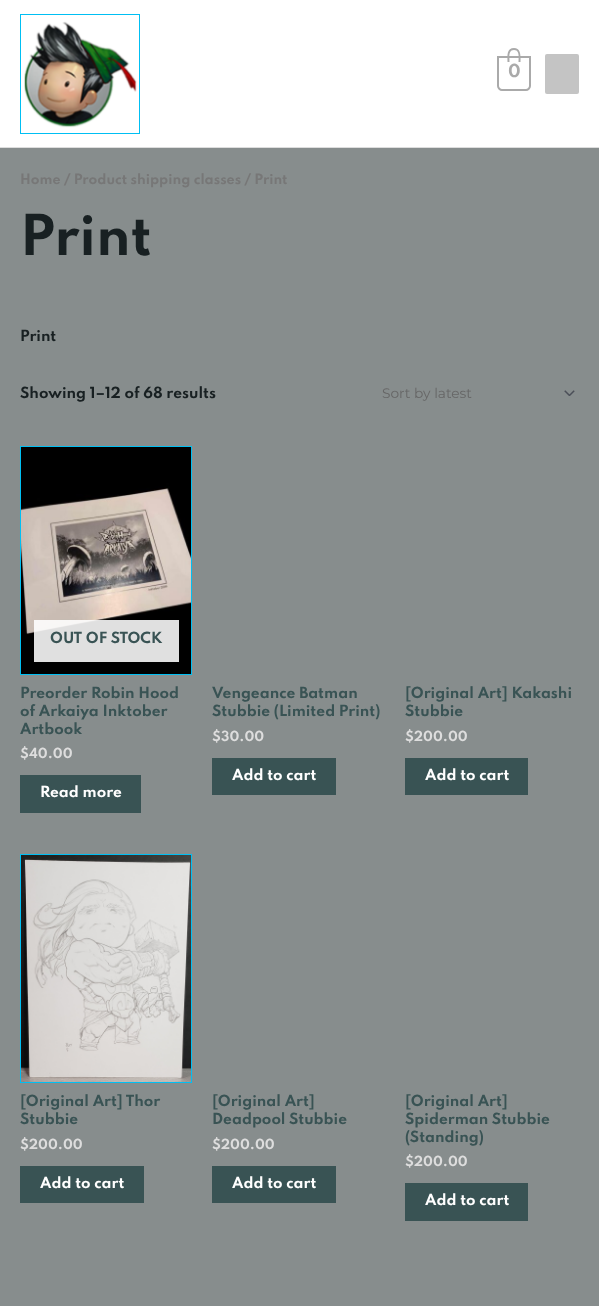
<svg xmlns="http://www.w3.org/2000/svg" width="599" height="1306">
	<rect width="100%" height="100%" fill="#878D8D" />
	<rect x="0" y="0" width="599" height="147" fill="#FFFFFF" />
	<rect x="0" y="147" width="599" height="1" fill="#DDDDDD" />
	<rect x="20.5" y="14.5" width="119" height="119" fill="none" stroke="#00BFF3" />
	<image x="24" y="21" width="113" height="107" href="assets/img1.png" />
	<path d="M498 57H530V86C530 88 528 90 526 90H502C500 90 498 88 498 86Z" fill="none" stroke="#AAAAAA" stroke-width="2" />
	<path d="M514 48C521.5 48 520.5 57 520.5 62H507.5C507.5 57 506 48 514 48ZM514 50C520 50 518.5 58 518.5 62H509.5C509.5 58 508 50 514 50Z" fill="#AAAAAA" fill-rule="evenodd" />
	<text x="508" y="77" font-family="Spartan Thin" font-size="16" font-weight="100" fill="#AAAAAA">0</text>
	<rect x="545" y="54" width="34" height="40" rx="2" fill="#C4C4C4" />
	<text x="20" y="184" font-family="Spartan Thin" font-size="12.6" font-weight="100" fill="#777777">Home / Product shipping classes / Print</text>
	<text x="20" y="255" font-family="Spartan Thin" font-size="50" font-weight="100" fill="#182022">Print</text>
	<g font-family="Spartan Thin" font-size="13.75" font-weight="100" fill="#182022">
		<text x="20" y="341">Print</text>
		<text x="20" y="398">Showing 1–12 of 68 results</text>
	</g>
	<image x="564" y="390" width="11" height="6" href="assets/img2.png" />
	<text x="382" y="398" font-family="Montserrat" font-size="13.75" fill="#666666">Sort by latest</text>
	<rect x="20.5" y="446.5" width="171" height="228" fill="none" stroke="#00BFF3" />
	<image x="21" y="447" width="170" height="227" href="assets/img3.png" />
	<rect x="34" y="620" width="145" height="42" fill="#FFFFFF" fill-opacity="0.88" />
	<g font-family="Spartan Thin" font-size="13.75" font-weight="100" fill="#395354">
		<text x="50" y="643">OUT OF STOCK</text>
		<text x="20" y="698">Preorder Robin Hood</text>
		<text x="20" y="716">of Arkaiya Inktober</text>
		<text x="20" y="734">Artbook</text>
	</g>
	<text x="20" y="758" font-family="Spartan Thin" font-size="12.5" font-weight="100" fill="#DDDDDD">$40.00</text>
	<rect x="20" y="775" width="121" height="38" fill="#395354" />
	<text x="40" y="797" font-family="Spartan Thin" font-size="13.75" font-weight="100" fill="#FFFFFF">Read more</text>
	<g font-family="Spartan Thin" font-size="13.75" font-weight="100" fill="#395354">
		<text x="212" y="698">Vengeance Batman</text>
		<text x="212" y="716">Stubbie (Limited Print)</text>
	</g>
	<text x="212" y="741" font-family="Spartan Thin" font-size="12.5" font-weight="100" fill="#DDDDDD">$30.00</text>
	<rect x="212" y="758" width="124" height="37" fill="#395354" />
	<text x="232" y="780" font-family="Spartan Thin" font-size="13.75" font-weight="100" fill="#FFFFFF">Add to cart</text>
	<g font-family="Spartan Thin" font-size="13.75" font-weight="100" fill="#395354">
		<text x="405" y="698">[Original Art] Kakashi</text>
		<text x="405" y="716">Stubbie</text>
	</g>
	<text x="405" y="741" font-family="Spartan Thin" font-size="12.5" font-weight="100" fill="#DDDDDD">$200.00</text>
	<rect x="405" y="758" width="123" height="37" fill="#395354" />
	<text x="425" y="780" font-family="Spartan Thin" font-size="13.75" font-weight="100" fill="#FFFFFF">Add to cart</text>
	<rect x="20.5" y="854.5" width="171" height="228" fill="none" stroke="#00BFF3" />
	<image x="21" y="855" width="170" height="227" href="assets/img4.png" />
	<g font-family="Spartan Thin" font-size="13.75" font-weight="100" fill="#395354">
		<text x="20" y="1106">[Original Art] Thor</text>
		<text x="20" y="1124">Stubbie</text>
	</g>
	<text x="20" y="1149" font-family="Spartan Thin" font-size="12.5" font-weight="100" fill="#DDDDDD">$200.00</text>
	<rect x="20" y="1166" width="124" height="37" fill="#395354" />
	<text x="40" y="1188" font-family="Spartan Thin" font-size="13.75" font-weight="100" fill="#FFFFFF">Add to cart</text>
	<g font-family="Spartan Thin" font-size="13.75" font-weight="100" fill="#395354">
		<text x="212" y="1106">[Original Art]</text>
		<text x="212" y="1124">Deadpool Stubbie</text>
	</g>
	<text x="212" y="1149" font-family="Spartan Thin" font-size="12.5" font-weight="100" fill="#DDDDDD">$200.00</text>
	<rect x="212" y="1166" width="124" height="37" fill="#395354" />
	<text x="232" y="1188" font-family="Spartan Thin" font-size="13.75" font-weight="100" fill="#FFFFFF">Add to cart</text>
	<g font-family="Spartan Thin" font-size="13.75" font-weight="100" fill="#395354">
		<text x="405" y="1106">[Original Art]</text>
		<text x="405" y="1124">Spiderman Stubbie</text>
		<text x="405" y="1142">(Standing)</text>
	</g>
	<text x="405" y="1166" font-family="Spartan Thin" font-size="12.5" font-weight="100" fill="#DDDDDD">$200.00</text>
	<rect x="405" y="1183" width="123" height="38" fill="#395354" />
	<text x="425" y="1205" font-family="Spartan Thin" font-size="13.75" font-weight="100" fill="#FFFFFF">Add to cart</text>
</svg>
